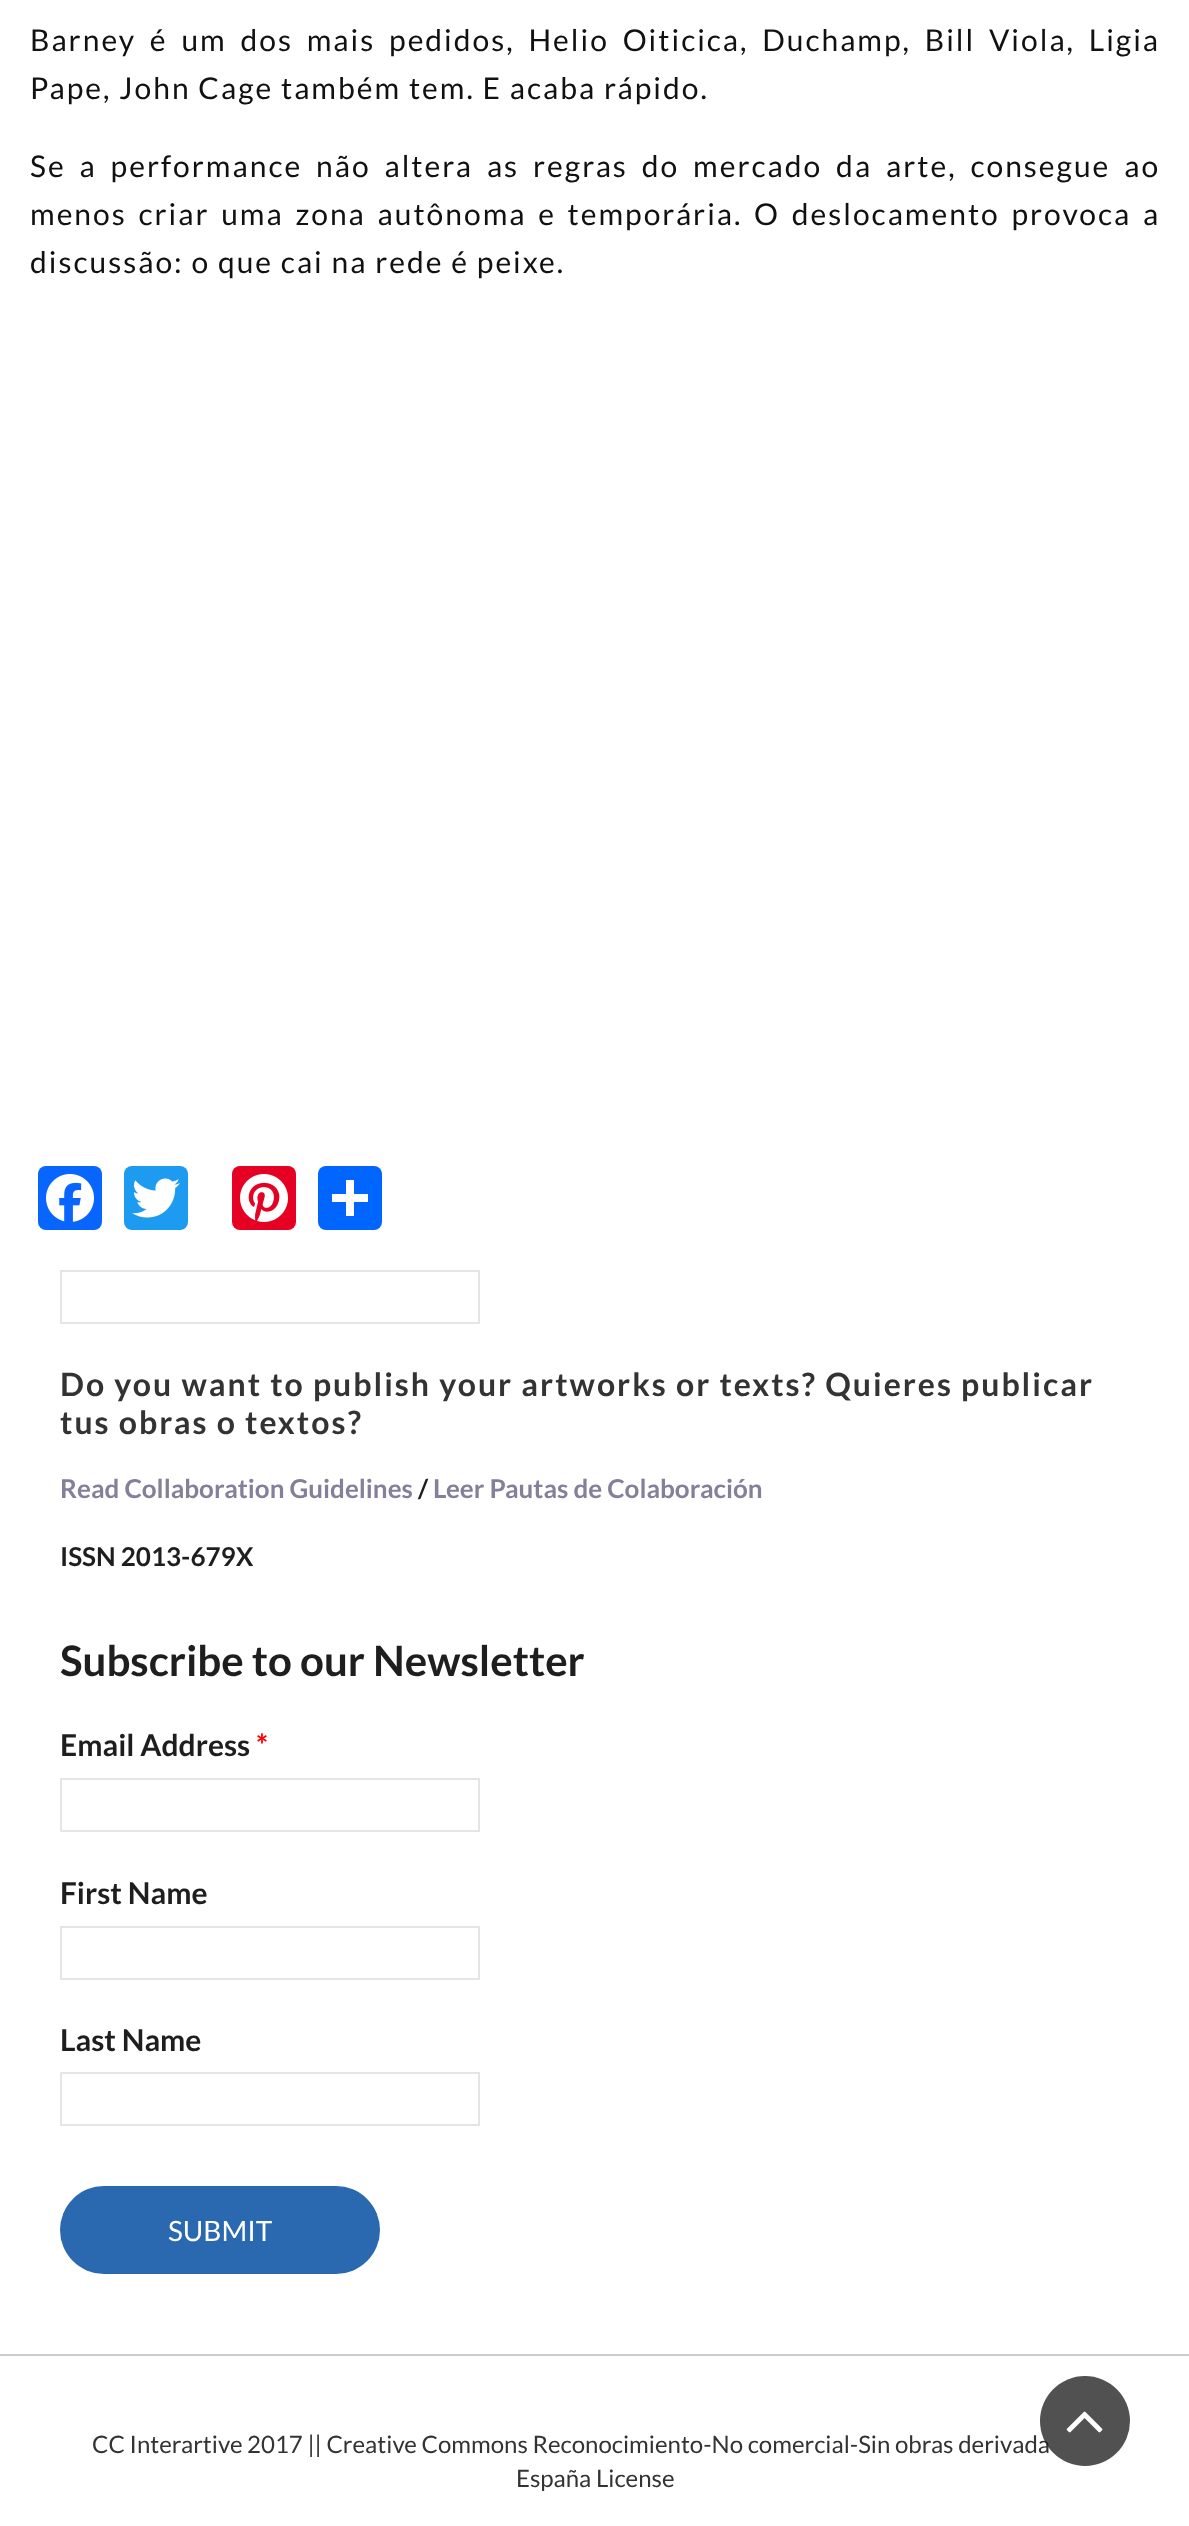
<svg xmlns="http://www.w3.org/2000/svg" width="1189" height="2526">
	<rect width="100%" height="100%" fill="#FFFFFF" />
	<g font-family="Lato" font-size="30" letter-spacing="2" fill="#111111">
		<text x="30" y="51" word-spacing="6">Barney é um dos mais pedidos, Helio Oiticica, Duchamp, Bill Viola, Ligia</text>
		<text x="30" y="99">Pape, John Cage também tem. E acaba rápido.</text>
		<text x="30" y="177" word-spacing="6.1">Se a performance não altera as regras do mercado da arte, consegue ao</text>
		<text x="30" y="225" word-spacing="3.9">menos criar uma zona autônoma e temporária. O deslocamento provoca a</text>
		<text x="30" y="273">discussão: o que cai na rede é peixe.</text>
	</g>
	<rect x="38" y="1166" width="64" height="64" rx="8" fill="#0866FF" />
	<image x="46" y="1174" width="48" height="48" href="assets/img1.png" />
	<rect x="124" y="1166" width="64" height="64" rx="8" fill="#1D9BF0" />
	<image x="132" y="1178" width="48" height="40" href="assets/img2.png" />
	<rect x="232" y="1166" width="64" height="64" rx="8" fill="#E60023" />
	<image x="240" y="1174" width="48" height="48" href="assets/img3.png" />
	<rect x="318" y="1166" width="64" height="64" rx="8" fill="#0166FF" />
	<rect x="346" y="1180" width="8" height="36" fill="#FFFFFF" />
	<rect x="332" y="1194" width="36" height="8" fill="#FFFFFF" />
	<rect x="61" y="1271" width="418" height="52" fill="none" stroke="#E5E5E5" stroke-width="2" />
	<g font-family="Lato" font-size="32" font-weight="700" letter-spacing="2" fill="#333333">
		<text x="60" y="1396">Do you want to publish your artworks or texts? Quieres publicar</text>
		<text x="60" y="1434">tus obras o textos?</text>
	</g>
	<text x="60" y="1498" font-family="Lato" font-size="26" font-weight="700" fill="#857F99">Read Collaboration Guidelines</text>
	<text x="418" y="1498" font-family="Lato" font-size="26" font-weight="700" fill="#1E1E1E">/</text>
	<text x="433" y="1498" font-family="Lato" font-size="26" font-weight="700" fill="#857F99">Leer Pautas de Colaboración</text>
	<text x="60" y="1566" font-family="Lato" font-size="26" font-weight="700" fill="#1E1E1E">ISSN 2013-679X</text>
	<text x="60" y="1676" font-family="Lato" font-size="42" font-weight="700" fill="#1E1E1E">Subscribe to our Newsletter</text>
	<text x="60" y="1756" font-family="Lato" font-size="30" font-weight="700" fill="#1E1E1E">Email Address</text>
	<text x="256" y="1756" font-family="Lato" font-size="30" font-weight="700" fill="#FF0000">*</text>
	<rect x="61" y="1779" width="418" height="52" fill="none" stroke="#E5E5E5" stroke-width="2" />
	<text x="60" y="1904" font-family="Lato" font-size="30" font-weight="700" fill="#1E1E1E">First Name</text>
	<rect x="61" y="1927" width="418" height="52" fill="none" stroke="#E5E5E5" stroke-width="2" />
	<text x="60" y="2051" font-family="Lato" font-size="30" font-weight="700" fill="#1E1E1E">Last Name</text>
	<rect x="61" y="2073" width="418" height="52" fill="none" stroke="#E5E5E5" stroke-width="2" />
	<rect x="60" y="2186" width="320" height="88" rx="44" fill="#2A68AF" />
	<text x="168" y="2241" font-family="Lato" font-size="28" fill="#FFFFFF">SUBMIT</text>
	<rect x="0" y="2354" width="1189" height="2" fill="#CCCCCC" />
	<g font-family="Lato" font-size="24" fill="#333333">
		<text x="92" y="2453">CC Interartive 2017 || Creative Commons Reconocimiento-No comercial-Sin obras derivada</text>
		<text x="516" y="2487">España License</text>
	</g>
	<circle cx="1085" cy="2421" r="45" fill="#252525" fill-opacity="0.8" />
	<image x="1066" y="2411" width="37" height="22" href="assets/img4.png" />
</svg>
